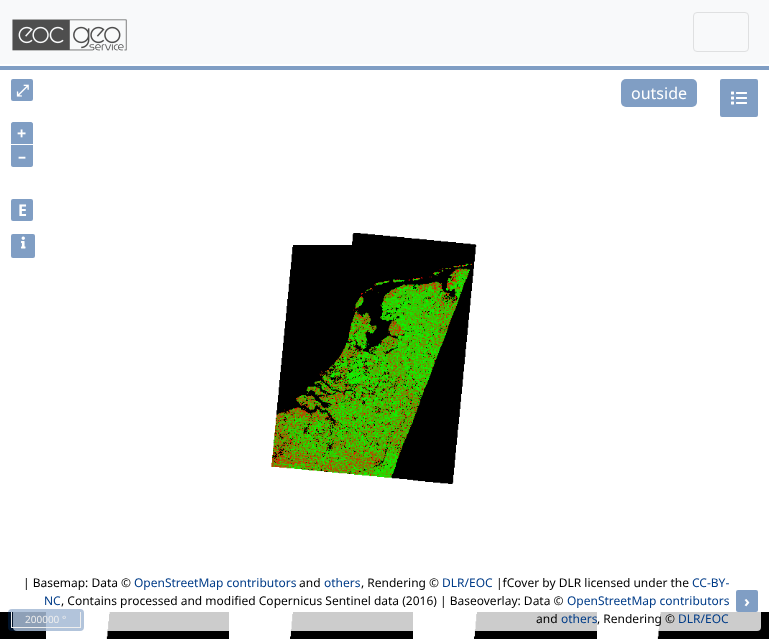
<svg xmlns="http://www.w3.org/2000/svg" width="769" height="639">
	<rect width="100%" height="100%" fill="#FFFFFF" />
	<rect x="0" y="0" width="769" height="64" fill="#F8F9FA" />
	<image x="12" y="19" width="115" height="32" href="assets/img1.png" />
	<rect x="693.5" y="12.5" width="55" height="39" rx="3.5" fill="none" stroke="#DFE0E1" />
	<rect x="0" y="66" width="769" height="4" fill="#809EC4" />
	<rect x="11" y="79" width="22" height="22" rx="2" fill="#809EC4" />
	<text x="16" y="96" font-family="FreeSerif" font-size="16" font-weight="700" fill="#FFFFFF">⤢</text>
	<rect x="621" y="79" width="76" height="28" rx="5" fill="#809EC4" />
	<text x="631" y="99" font-family="Noto Sans" font-size="16" fill="#FFFFFF">outside</text>
	<rect x="720" y="79" width="38" height="38" rx="2" fill="#809EC4" />
	<image x="731" y="91" width="16" height="14" href="assets/img2.png" />
	<path d="M13 122H31C32 122 33 123 33 124V144H11V124C11 123 12 122 13 122Z" fill="#809EC4" />
	<text x="17" y="139" font-family="Noto Sans" font-size="16" font-weight="700" fill="#FFFFFF">+</text>
	<path d="M11 145H33V165C33 166 32 167 31 167H13C12 167 11 166 11 165Z" fill="#809EC4" />
	<text x="18" y="162" font-family="Noto Sans" font-size="16" font-weight="700" fill="#FFFFFF">–</text>
	<rect x="11" y="199" width="22" height="22" rx="2" fill="#809EC4" />
	<text x="18" y="216" font-family="Noto Sans" font-size="16" font-weight="700" fill="#FFFFFF">E</text>
	<image x="0" y="233" width="769" height="406" href="assets/img4.png" />
	<rect x="11" y="234" width="24" height="24" rx="2" fill="#809EC4" />
	<image x="21" y="236" width="5" height="13" href="assets/img3.png" />
	<rect x="13" y="571" width="748" height="60" rx="4" fill="#FFFFFF" fill-opacity="0.8" />
	<text x="23" y="587" font-family="Noto Sans" font-size="12" fill="#000000">| Basemap: Data ©</text>
	<text x="134" y="587" font-family="Noto Sans" font-size="12" fill="#003C88">OpenStreetMap contributors</text>
	<text x="299" y="587" font-family="Noto Sans" font-size="12" fill="#000000">and</text>
	<text x="324" y="587" font-family="Noto Sans" font-size="12" fill="#003C88">others</text>
	<text x="361" y="587" font-family="Noto Sans" font-size="12" fill="#000000">, Rendering ©</text>
	<text x="442" y="587" font-family="Noto Sans" font-size="12" fill="#003C88">DLR/EOC</text>
	<text x="496" y="587" font-family="Noto Sans" font-size="12" fill="#000000">|fCover by DLR licensed under the</text>
	<g font-family="Noto Sans" font-size="12" fill="#003C88">
		<text x="692" y="587">CC-BY-</text>
		<text x="44" y="605">NC</text>
	</g>
	<text x="61" y="605" font-family="Noto Sans" font-size="12" fill="#000000">, Contains processed and modified Copernicus Sentinel data (2016) | Baseoverlay: Data ©</text>
	<text x="567" y="605" font-family="Noto Sans" font-size="12" fill="#003C88">OpenStreetMap contributors</text>
	<text x="536" y="623" font-family="Noto Sans" font-size="12" fill="#000000">and</text>
	<text x="561" y="623" font-family="Noto Sans" font-size="12" fill="#003C88">others</text>
	<text x="597" y="623" font-family="Noto Sans" font-size="12" fill="#000000">, Rendering ©</text>
	<text x="678" y="623" font-family="Noto Sans" font-size="12" fill="#003C88">DLR/EOC</text>
	<rect x="736" y="590" width="22" height="22" rx="2" fill="#809EC4" />
	<text x="744" y="607" font-family="Noto Sans" font-size="16" font-weight="700" fill="#FFFFFF">›</text>
	<rect x="8" y="609" width="76" height="22" rx="4" fill="#003C88" fill-opacity="0.3" />
	<rect x="80" y="612" width="1" height="16" fill="#EEEEEE" />
	<rect x="11" y="627" width="70" height="1" fill="#EEEEEE" />
	<rect x="11" y="612" width="1" height="16" fill="#EEEEEE" />
	<text x="25" y="623" font-family="Noto Sans" font-size="10" fill="#EEEEEE">200000 °</text>
</svg>
